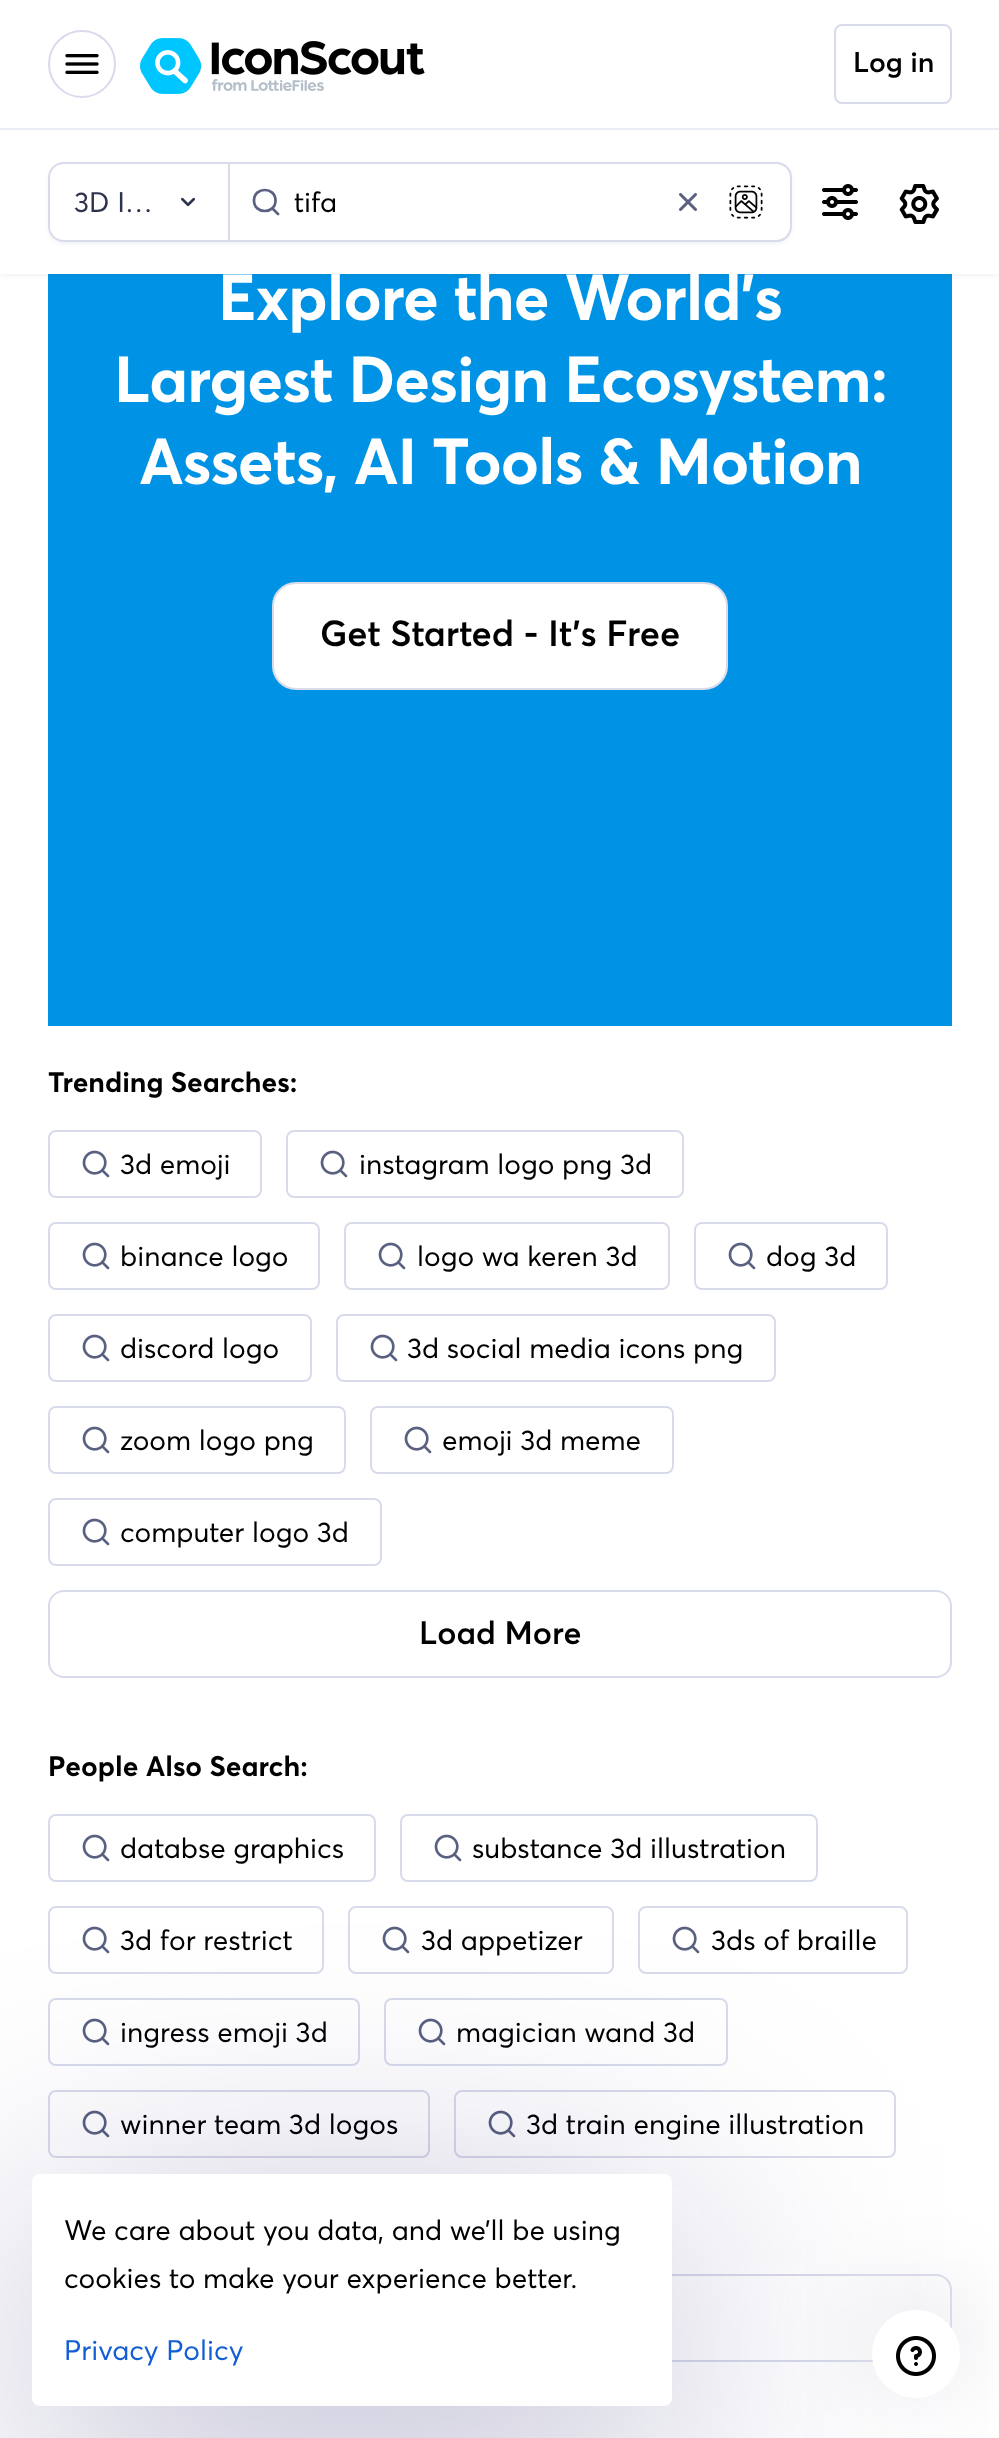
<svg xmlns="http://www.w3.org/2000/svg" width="999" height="2438">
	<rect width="100%" height="100%" fill="#FFFFFF" />
	<rect x="48" y="274" width="904" height="752" fill="#0092E4" />
	<rect x="0" y="2" width="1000" height="274" fill="#000000" fill-opacity="0.05" filter="blur(2px)" />
	<rect x="0" y="0" width="999" height="274" fill="#FFFFFF" />
	<rect x="0" y="128" width="999" height="2" fill="#EBEDF5" />
	<circle cx="82" cy="64" r="33" fill="none" stroke="#D8DBEB" stroke-width="2" />
	<image x="65" y="54" width="34" height="20" href="assets/img1.png" />
	<image x="140" y="38" width="285" height="56" href="assets/img2.png" />
	<rect x="835" y="25" width="116" height="78" rx="7" fill="none" stroke="#D8DBEB" stroke-width="2" />
	<text x="853" y="72" font-family="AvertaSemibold" font-size="28" font-weight="600" fill="#000000">Log in</text>
	<rect x="48" y="164" width="744" height="80" rx="16" fill="#000000" fill-opacity="0.05" filter="blur(2px)" />
	<path d="M230 164H776C783.5 164 790 170.5 790 178V226C790 233.5 783.5 240 776 240H230Z" fill="#FFFFFF" />
	<path d="M278 214L272.5 208.5M275.5 200.5C275.5 214.5 254 214.5 254 200.5C254 186.5 275.5 186.5 275.5 200.5Z" fill="none" stroke="#596080" stroke-width="2.7" stroke-linecap="round" stroke-linejoin="round" />
	<path d="M227 163H776C784.5 163 791 169.5 791 178V226C791 234.5 784.5 241 776 241H227Z" fill="none" stroke="#D8DBEB" stroke-width="2" />
	<path d="M64 162H228V242H64C55 242 48 235 48 226V178C48 169 55 162 64 162Z" fill="#FFFFFF" />
	<path d="M64 162H228V242H64C55 242 48 235 48 226V178C48 169 55 162 64 162ZM64 164H228V240H64C56 240 50 234 50 226V178C50 170 56 164 64 164Z" fill="#D8DBEB" fill-rule="evenodd" />
	<text x="74" y="212" font-family="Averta" font-size="28" fill="#2E334D">3D I…</text>
	<image x="181" y="197" width="14" height="10" href="assets/img3.png" />
	<rect x="228" y="162" width="2" height="80" fill="#D8DBEB" />
	<text x="294" y="212" font-family="Averta" font-size="28" fill="#000000">tifa</text>
	<image x="679" y="193" width="18" height="18" href="assets/img4.png" />
	<image x="729" y="185" width="34" height="34" href="assets/img5.png" />
	<image x="822" y="184" width="36" height="36" href="assets/img6.png" />
	<image x="899" y="184" width="40" height="40" href="assets/img7.png" />
	<g font-family="Averta" font-size="64" font-weight="700" letter-spacing="-0.95" fill="#FFFFFF">
		<text x="218" y="320">Explore the World's</text>
		<text x="114" y="402">Largest Design Ecosystem:</text>
		<text x="139" y="484">Assets, AI Tools &amp; Motion</text>
	</g>
	<rect x="273" y="583" width="454" height="106" rx="23" fill="#FFFFFF" stroke="#D8DBEB" stroke-width="2" />
	<text x="320" y="646" font-family="AvertaSemibold" font-size="36" font-weight="600" fill="#000000">Get Started - It's Free</text>
	<text x="48" y="1092" font-family="Averta" font-size="28" font-weight="700" fill="#000000">Trending Searches:</text>
	<rect x="49" y="1131" width="212" height="66" rx="7" fill="none" stroke="#D8DBEB" stroke-width="2" />
	<image x="82" y="1150" width="28" height="28" href="assets/img8.png" />
	<text x="120" y="1174" font-family="Averta" font-size="28" fill="#000000">3d emoji</text>
	<rect x="287" y="1131" width="396" height="66" rx="7" fill="none" stroke="#D8DBEB" stroke-width="2" />
	<image x="320" y="1150" width="28" height="28" href="assets/img8.png" />
	<text x="359" y="1174" font-family="Averta" font-size="28" fill="#000000">instagram logo png 3d</text>
	<rect x="49" y="1223" width="270" height="66" rx="7" fill="none" stroke="#D8DBEB" stroke-width="2" />
	<image x="82" y="1242" width="28" height="28" href="assets/img8.png" />
	<text x="120" y="1266" font-family="Averta" font-size="28" fill="#000000">binance logo</text>
	<rect x="345" y="1223" width="324" height="66" rx="7" fill="none" stroke="#D8DBEB" stroke-width="2" />
	<image x="378" y="1242" width="28" height="28" href="assets/img8.png" />
	<text x="417" y="1266" font-family="Averta" font-size="28" fill="#000000">logo wa keren 3d</text>
	<rect x="695" y="1223" width="192" height="66" rx="7" fill="none" stroke="#D8DBEB" stroke-width="2" />
	<image x="728" y="1242" width="28" height="28" href="assets/img8.png" />
	<text x="766" y="1266" font-family="Averta" font-size="28" fill="#000000">dog 3d</text>
	<rect x="49" y="1315" width="262" height="66" rx="7" fill="none" stroke="#D8DBEB" stroke-width="2" />
	<image x="82" y="1334" width="28" height="28" href="assets/img8.png" />
	<text x="120" y="1358" font-family="Averta" font-size="28" fill="#000000">discord logo</text>
	<rect x="337" y="1315" width="438" height="66" rx="7" fill="none" stroke="#D8DBEB" stroke-width="2" />
	<image x="370" y="1334" width="28" height="28" href="assets/img8.png" />
	<text x="407" y="1358" font-family="Averta" font-size="28" fill="#000000">3d social media icons png</text>
	<rect x="49" y="1407" width="296" height="66" rx="7" fill="none" stroke="#D8DBEB" stroke-width="2" />
	<image x="82" y="1426" width="28" height="28" href="assets/img8.png" />
	<text x="120" y="1450" font-family="Averta" font-size="28" fill="#000000">zoom logo png</text>
	<rect x="371" y="1407" width="302" height="66" rx="7" fill="none" stroke="#D8DBEB" stroke-width="2" />
	<image x="404" y="1426" width="28" height="28" href="assets/img8.png" />
	<text x="442" y="1450" font-family="Averta" font-size="28" fill="#000000">emoji 3d meme</text>
	<rect x="49" y="1499" width="332" height="66" rx="7" fill="none" stroke="#D8DBEB" stroke-width="2" />
	<image x="82" y="1518" width="28" height="28" href="assets/img8.png" />
	<text x="120" y="1542" font-family="Averta" font-size="28" fill="#000000">computer logo 3d</text>
	<rect x="49" y="1591" width="902" height="86" rx="15" fill="none" stroke="#D8DBEB" stroke-width="2" />
	<text x="419" y="1644" font-family="AvertaSemibold" font-size="32" font-weight="600" fill="#000000">Load More</text>
	<text x="48" y="1776" font-family="Averta" font-size="28" font-weight="700" fill="#000000">People Also Search:</text>
	<rect x="49" y="1815" width="326" height="66" rx="7" fill="none" stroke="#D8DBEB" stroke-width="2" />
	<image x="82" y="1834" width="28" height="28" href="assets/img8.png" />
	<text x="120" y="1858" font-family="Averta" font-size="28" fill="#000000">databse graphics</text>
	<rect x="401" y="1815" width="416" height="66" rx="7" fill="none" stroke="#D8DBEB" stroke-width="2" />
	<image x="434" y="1834" width="28" height="28" href="assets/img8.png" />
	<text x="472" y="1858" font-family="Averta" font-size="28" fill="#000000">substance 3d illustration</text>
	<rect x="49" y="1907" width="274" height="66" rx="7" fill="none" stroke="#D8DBEB" stroke-width="2" />
	<image x="82" y="1926" width="28" height="28" href="assets/img8.png" />
	<text x="120" y="1950" font-family="Averta" font-size="28" fill="#000000">3d for restrict</text>
	<rect x="349" y="1907" width="264" height="66" rx="7" fill="none" stroke="#D8DBEB" stroke-width="2" />
	<image x="382" y="1926" width="28" height="28" href="assets/img8.png" />
	<text x="421" y="1950" font-family="Averta" font-size="28" fill="#000000">3d appetizer</text>
	<rect x="639" y="1907" width="268" height="66" rx="7" fill="none" stroke="#D8DBEB" stroke-width="2" />
	<image x="672" y="1926" width="28" height="28" href="assets/img8.png" />
	<text x="711" y="1950" font-family="Averta" font-size="28" fill="#000000">3ds of braille</text>
	<rect x="49" y="1999" width="310" height="66" rx="7" fill="none" stroke="#D8DBEB" stroke-width="2" />
	<image x="82" y="2018" width="28" height="28" href="assets/img8.png" />
	<text x="120" y="2042" font-family="Averta" font-size="28" fill="#000000">ingress emoji 3d</text>
	<rect x="385" y="1999" width="342" height="66" rx="7" fill="none" stroke="#D8DBEB" stroke-width="2" />
	<image x="418" y="2018" width="28" height="28" href="assets/img8.png" />
	<text x="456" y="2042" font-family="Averta" font-size="28" fill="#000000">magician wand 3d</text>
	<rect x="49" y="2091" width="380" height="66" rx="7" fill="none" stroke="#D8DBEB" stroke-width="2" />
	<image x="82" y="2110" width="28" height="28" href="assets/img8.png" />
	<text x="120" y="2134" font-family="Averta" font-size="28" fill="#000000">winner team 3d logos</text>
	<rect x="455" y="2091" width="440" height="66" rx="7" fill="none" stroke="#D8DBEB" stroke-width="2" />
	<image x="488" y="2110" width="28" height="28" href="assets/img8.png" />
	<text x="526" y="2134" font-family="Averta" font-size="28" fill="#000000">3d train engine illustration</text>
	<rect x="49" y="2275" width="902" height="86" rx="15" fill="none" stroke="#D8DBEB" stroke-width="2" />
	<rect x="32" y="2238" width="640" height="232" rx="8" fill="#0A0359" fill-opacity="0.3" filter="blur(144px)" />
	<rect x="32" y="2174" width="640" height="232" rx="8" fill="#FFFFFF" />
	<g font-family="Averta" font-size="28" fill="#000000">
		<text x="64" y="2240">We care about you data, and we’ll be using</text>
		<text x="64" y="2288">cookies to make your experience better.</text>
	</g>
	<text x="64" y="2360" font-family="Averta" font-size="28" fill="#135ED5">Privacy Policy</text>
	<rect x="872" y="2294" width="88" height="88" rx="44" fill="#E0E0E8" filter="blur(48px)" />
	<circle cx="916" cy="2354" r="44" fill="#FFFFFF" />
	<image x="896" y="2336" width="40" height="40" href="assets/img9.png" />
</svg>
